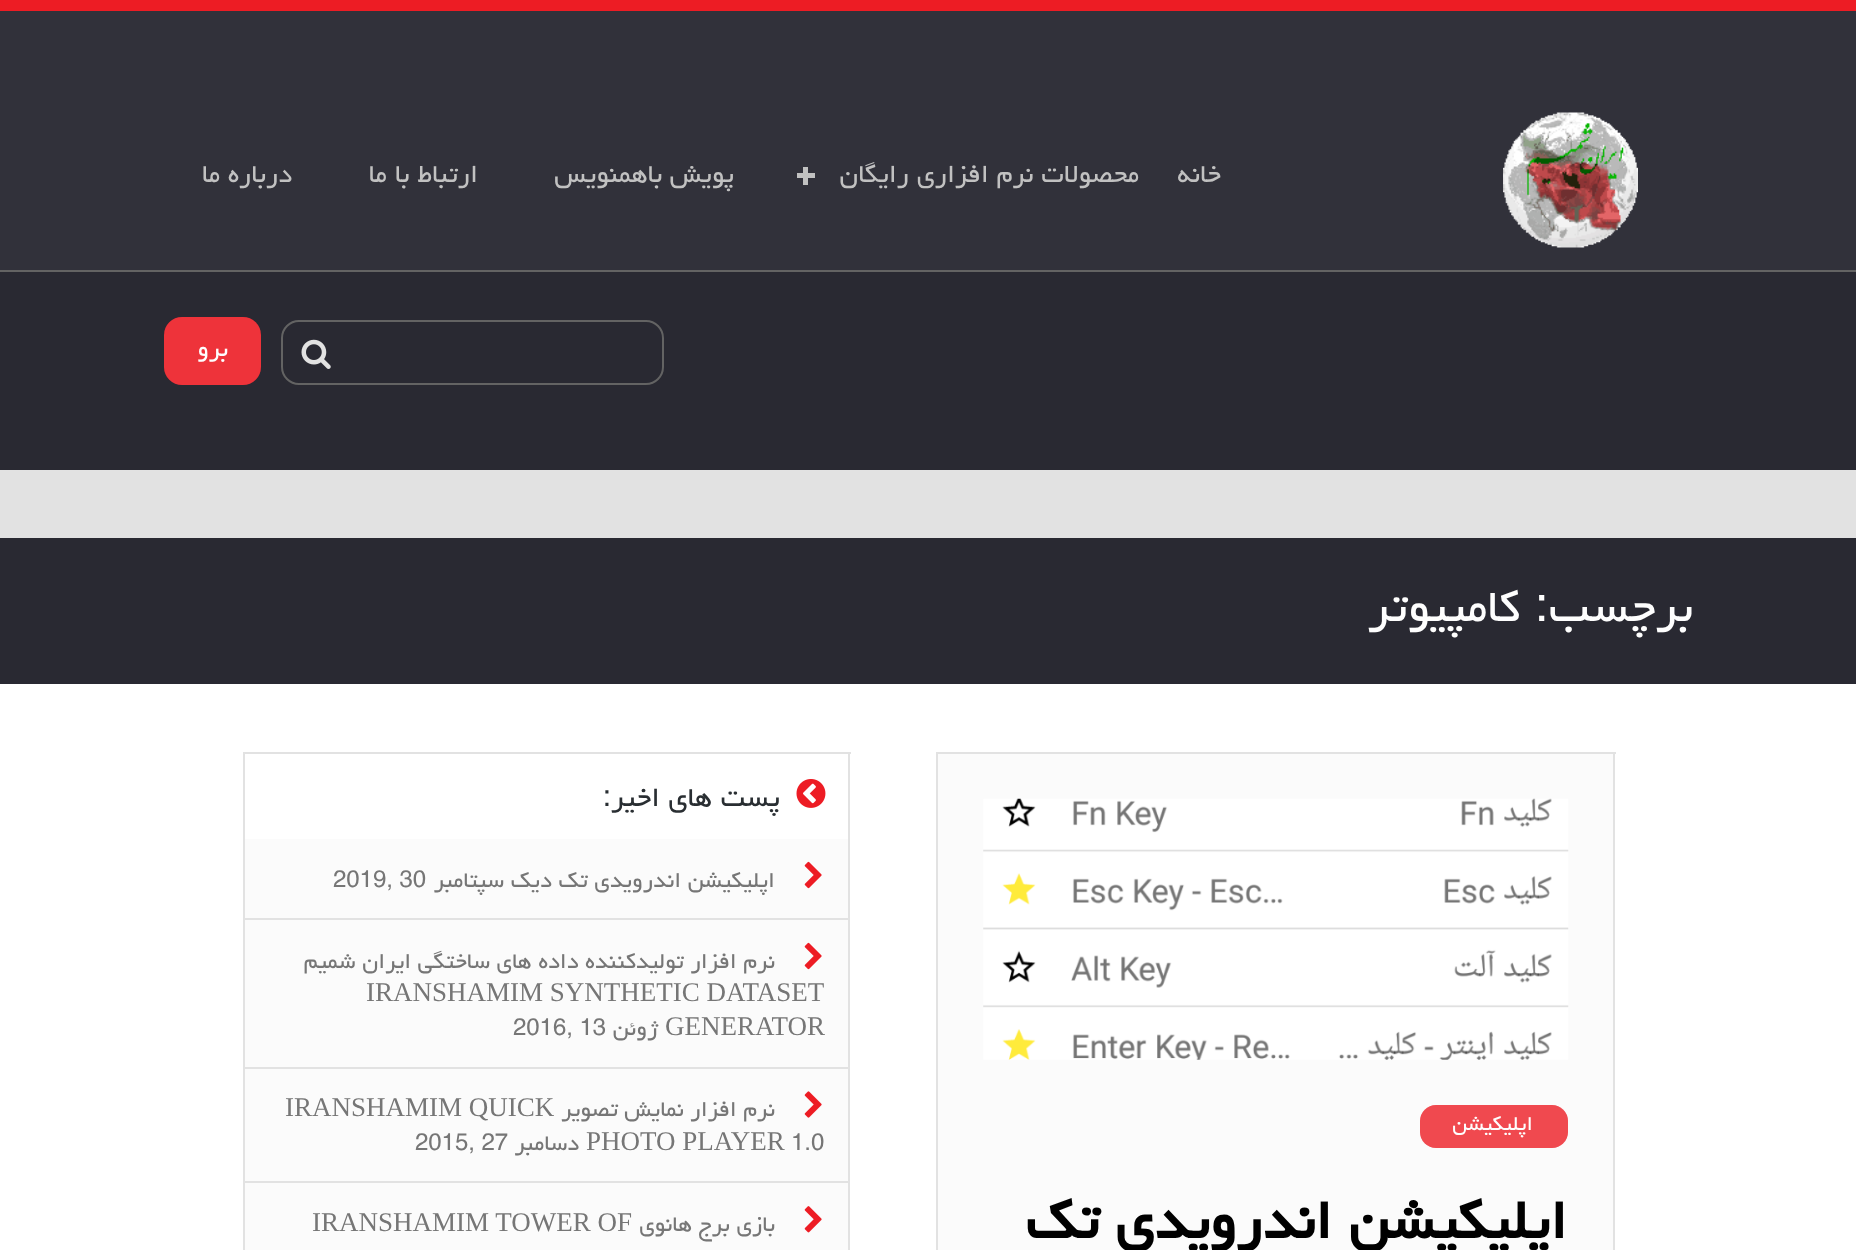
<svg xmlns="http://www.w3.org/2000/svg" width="1856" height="1250">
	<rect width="100%" height="100%" fill="#E2E2E2" />
	<rect x="0" y="0" width="1856" height="11" fill="#ED1C24" />
	<rect x="0" y="11" width="1856" height="259" fill="#31313A" />
	<rect x="0" y="270" width="1856" height="2" fill="#636363" />
	<image x="1503" y="112" width="135" height="136" href="assets/img1.png" />
	<g font-family="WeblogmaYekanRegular" font-size="31.5" direction="rtl" fill="#C1C1C1">
		<text x="1221" y="182">خانه</text>
		<text x="1139" y="182">محصولات نرم افزاری رایگان</text>
	</g>
	<rect x="803" y="167" width="5" height="18" fill="#C1C1C1" />
	<rect x="797" y="173" width="18" height="5" fill="#C1C1C1" />
	<g font-family="WeblogmaYekanRegular" font-size="31.5" direction="rtl" fill="#C1C1C1">
		<text x="734" y="182">پویش باهمنویس</text>
		<text x="478" y="182">ارتباط با ما</text>
		<text x="292" y="182">درباره ما</text>
	</g>
	<rect x="0" y="272" width="1856" height="198" fill="#292932" />
	<rect x="282" y="321" width="381" height="63" rx="17" fill="none" stroke="#636363" stroke-width="2" />
	<image x="301" y="339" width="30" height="30" href="assets/img2.png" />
	<rect x="164" y="317" width="97" height="68" rx="18" fill="#ED1C24" />
	<rect x="164" y="317" width="97" height="68" rx="18" fill="#FFFFFF" fill-opacity="0.1" />
	<text x="228" y="356" font-family="WeblogmaYekanRegular" font-size="29" direction="rtl" fill="#FEFEFE">برو</text>
	<rect x="0" y="538" width="1856" height="146" fill="#292932" />
	<g font-family="WeblogmaYekanRegular" font-size="56" direction="rtl" fill="#FEFEFE">
		<text x="1693" y="621">برچسب:</text>
		<text x="1520" y="621">کامپیوتر</text>
	</g>
	<rect x="0" y="684" width="1856" height="566" fill="#FFFFFF" />
	<rect x="938" y="754" width="675" height="496" fill="#FBFBFB" />
	<rect x="936" y="752" width="680" height="2" fill="#E2E2E2" />
	<rect x="1613" y="752" width="2" height="498" fill="#E2E2E2" />
	<rect x="936" y="752" width="2" height="498" fill="#E2E2E2" />
	<image x="983" y="798" width="586" height="262" href="assets/img3.png" />
	<rect x="1420" y="1105" width="148" height="43" rx="16" fill="#ED1C24" />
	<rect x="1420" y="1105" width="148" height="43" rx="16" fill="#FFFFFF" fill-opacity="0.2" />
	<text x="1533" y="1130" font-family="WeblogmaYekanRegular" font-size="25" direction="rtl" fill="#FEFEFE">اپلیکیشن</text>
	<text x="1567" y="1238" font-family="WeblogmaYekanRegular" font-size="67.5" font-weight="700" direction="rtl" fill="#000000">اپلیکیشن اندرویدی تک</text>
	<rect x="245" y="839" width="603" height="411" fill="#FBFBFB" />
	<rect x="243" y="752" width="608" height="2" fill="#E2E2E2" />
	<rect x="848" y="752" width="2" height="498" fill="#E2E2E2" />
	<rect x="243" y="752" width="2" height="498" fill="#E2E2E2" />
	<image x="796" y="779" width="30" height="29" href="assets/img4.png" />
	<text x="780" y="806" font-family="WeblogmaYekanRegular" font-size="33.75" direction="rtl" fill="#292E32">پست های اخیر:</text>
	<rect x="245" y="918" width="603" height="2" fill="#E2E2E2" />
	<image x="804" y="861" width="18" height="28" href="assets/img5.png" />
	<g font-family="WeblogmaYekanRegular" font-size="27" direction="rtl" fill="#767676">
		<text x="775" y="887">اپلیکیشن اندرویدی تک دیک</text>
		<text x="504" y="887">سپتامبر</text>
	</g>
	<text x="333" y="887" font-family="WeblogmaYekanRegular" font-size="27" fill="#767676">2019, 30</text>
	<rect x="245" y="1067" width="603" height="2" fill="#E2E2E2" />
	<image x="804" y="942" width="18" height="28" href="assets/img5.png" />
	<text x="775" y="968" font-family="WeblogmaYekanRegular" font-size="27" direction="rtl" fill="#767676">نرم افزار تولیدکننده داده های ساختگی ایران شمیم</text>
	<g font-family="Liberation Serif" font-size="27" fill="#767676">
		<text x="366" y="1001">IRANSHAMIM SYNTHETIC DATASET</text>
		<text x="665" y="1035">GENERATOR</text>
	</g>
	<text x="658" y="1035" font-family="WeblogmaYekanRegular" font-size="27" direction="rtl" fill="#767676">ژوئن</text>
	<text x="513" y="1035" font-family="WeblogmaYekanRegular" font-size="27" fill="#767676">2016, 13</text>
	<rect x="245" y="1181" width="603" height="2" fill="#E2E2E2" />
	<image x="804" y="1091" width="18" height="27" href="assets/img6.png" />
	<text x="775" y="1116" font-family="WeblogmaYekanRegular" font-size="27" direction="rtl" fill="#767676">نرم افزار نمایش تصویر</text>
	<text x="285" y="1116" font-family="Liberation Serif" font-size="27" fill="#767676">IRANSHAMIM QUICK</text>
	<text x="791" y="1150" font-family="WeblogmaYekanRegular" font-size="27" fill="#767676">1.0</text>
	<text x="586" y="1150" font-family="Liberation Serif" font-size="27" fill="#767676">PHOTO PLAYER</text>
	<text x="579" y="1150" font-family="WeblogmaYekanRegular" font-size="27" direction="rtl" fill="#767676">دسامبر</text>
	<text x="415" y="1150" font-family="WeblogmaYekanRegular" font-size="27" fill="#767676">2015, 27</text>
	<image x="804" y="1206" width="18" height="27" href="assets/img7.png" />
	<text x="775" y="1231" font-family="WeblogmaYekanRegular" font-size="27" direction="rtl" fill="#767676">بازی برج هانوی</text>
	<text x="312" y="1231" font-family="Liberation Serif" font-size="27" fill="#767676">IRANSHAMIM TOWER OF</text>
</svg>
